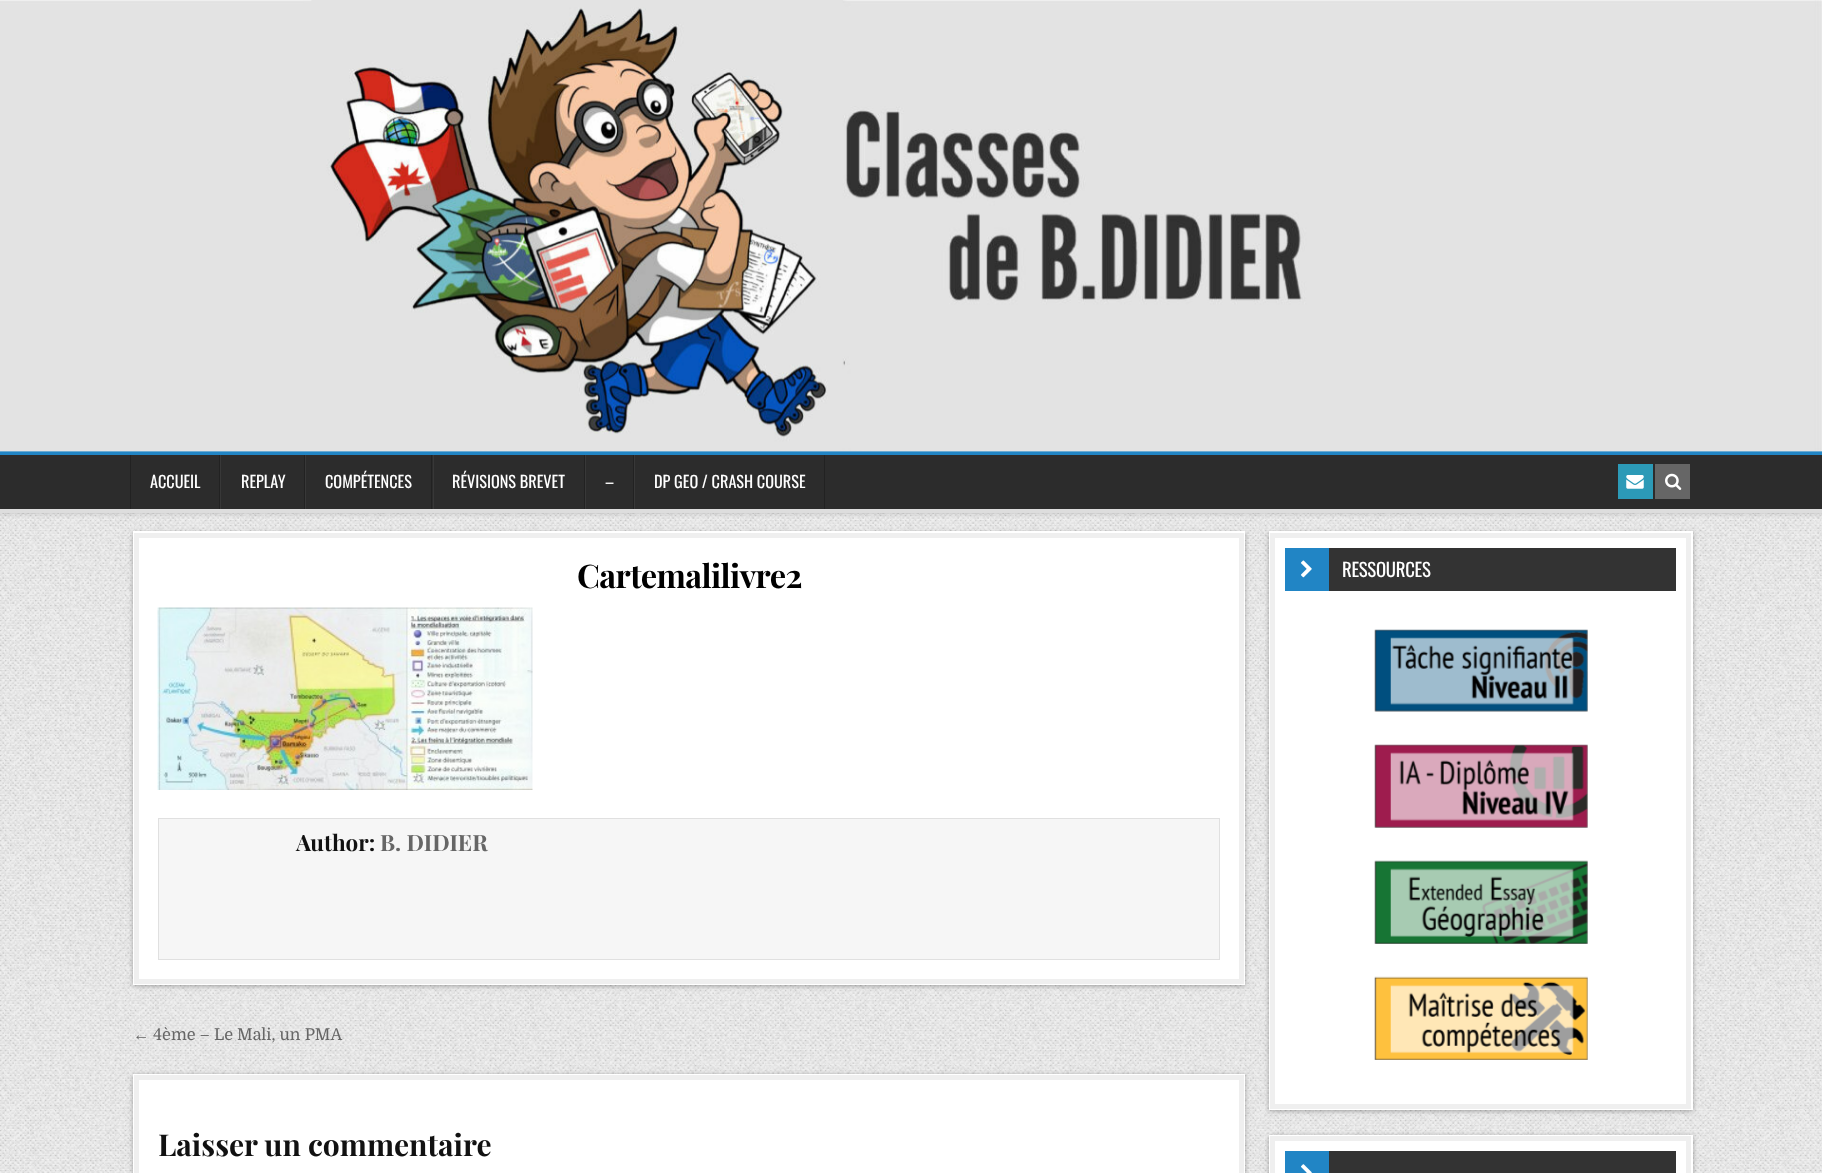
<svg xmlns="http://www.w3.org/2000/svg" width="1822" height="1173">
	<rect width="100%" height="100%" fill="#FFFFFF" />
	<image x="0" y="450" width="1822" height="723" href="assets/img1.png" />
	<rect x="0" y="453" width="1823" height="61" fill="#000000" fill-opacity="0.15" filter="blur(2px)" />
	<rect x="0" y="451" width="1822" height="4" fill="#2185C5" />
	<image x="0" y="0" width="1822" height="452" href="assets/img2.png" />
	<rect x="0" y="455" width="1822" height="54" fill="#2C2C2C" />
	<rect x="0" y="509" width="1822" height="4" fill="#DDDDDD" />
	<rect x="219" y="455" width="1" height="54" fill="#222222" />
	<rect x="130" y="455" width="1" height="54" fill="#222222" />
	<text x="150" y="488" font-family="Oswald" font-size="16.25" fill="#FFFFFF">ACCUEIL</text>
	<rect x="304" y="455" width="1" height="54" fill="#222222" />
	<rect x="220" y="455" width="1" height="54" fill="#383838" />
	<text x="241" y="488" font-family="Oswald" font-size="16.25" fill="#FFFFFF">REPLAY</text>
	<rect x="431" y="455" width="1" height="54" fill="#222222" />
	<rect x="305" y="455" width="1" height="54" fill="#383838" />
	<text x="325" y="488" font-family="Oswald" font-size="16.25" fill="#FFFFFF">COMPÉTENCES</text>
	<rect x="584" y="455" width="1" height="54" fill="#222222" />
	<rect x="433" y="455" width="1" height="54" fill="#383838" />
	<text x="452" y="488" font-family="Oswald" font-size="16.25" fill="#FFFFFF">RÉVISIONS BREVET</text>
	<rect x="633" y="455" width="1" height="54" fill="#222222" />
	<rect x="585" y="455" width="1" height="54" fill="#383838" />
	<text x="605" y="488" font-family="Oswald" font-size="16.25" fill="#FFFFFF">–</text>
	<rect x="824" y="455" width="1" height="54" fill="#222222" />
	<rect x="634" y="455" width="1" height="54" fill="#383838" />
	<text x="654" y="488" font-family="Oswald" font-size="16.25" fill="#FFFFFF">DP GEO / CRASH COURSE</text>
	<rect x="1618" y="464" width="35" height="35" fill="#2C9AB7" />
	<image x="1626" y="475" width="18" height="14" href="assets/img3.png" />
	<rect x="1655" y="464" width="35" height="35" fill="#666666" />
	<image x="1665" y="473" width="17" height="17" href="assets/img4.png" />
	<rect x="133" y="533" width="1112" height="453" fill="#000000" fill-opacity="0.3" filter="blur(2.5px)" />
	<rect x="133" y="531" width="1112" height="454" fill="#FFFFFF" />
	<rect x="136.5" y="535.5" width="1105" height="446" fill="none" stroke="#EFEFEF" stroke-width="5" />
	<text x="577" y="588" font-family="Playfair Display" font-size="32.5" font-weight="700" letter-spacing="-0.6" fill="#000000">Cartemalilivre2</text>
	<image x="157" y="607" width="376" height="183" href="assets/img5.png" />
	<rect x="158.5" y="818.5" width="1061" height="141" fill="#F6F6F6" stroke="#E0E0E0" />
	<text x="296" y="851" font-family="Playfair Display" font-size="22.5" font-weight="700" fill="#111111">Author:</text>
	<text x="380" y="851" font-family="Playfair Display" font-size="22.5" font-weight="700" fill="#666666">B. DIDIER</text>
	<text x="133" y="1040" font-family="Liberation Sans" font-size="16.25" fill="#666666">←</text>
	<text x="153" y="1040" font-family="Domine" font-size="16.25" fill="#666666">4ème – Le Mali, un PMA</text>
	<rect x="133" y="1075" width="1112" height="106" fill="#000000" fill-opacity="0.3" filter="blur(2.5px)" />
	<rect x="133" y="1074" width="1112" height="99" fill="#FFFFFF" />
	<rect x="136.5" y="1077.5" width="1105" height="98" fill="none" stroke="#EFEFEF" stroke-width="5" />
	<text x="158" y="1156" font-family="Playfair Display" font-size="30" font-weight="700" fill="#111111">Laisser un commentaire</text>
	<rect x="1269" y="533" width="424" height="578" fill="#000000" fill-opacity="0.3" filter="blur(2.5px)" />
	<rect x="1269" y="531" width="424" height="579" fill="#FFFFFF" />
	<rect x="1272.5" y="535.5" width="416" height="571" fill="none" stroke="#EFEFEF" stroke-width="5" />
	<rect x="1329" y="548" width="347" height="43" fill="#333333" />
	<rect x="1285" y="548" width="44" height="43" fill="#2185C5" />
	<image x="1301" y="560" width="11" height="18" href="assets/img6.png" />
	<text x="1342" y="577" font-family="Oswald" font-size="18.75" letter-spacing="-0.25" fill="#FFFFFF">RESSOURCES</text>
	<image x="1374" y="629" width="214" height="83" href="assets/img7.png" />
	<image x="1374" y="744" width="214" height="84" href="assets/img8.png" />
	<image x="1374" y="860" width="214" height="84" href="assets/img9.png" />
	<image x="1374" y="976" width="214" height="84" href="assets/img10.png" />
	<rect x="1269" y="1136" width="424" height="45" fill="#000000" fill-opacity="0.3" filter="blur(2.5px)" />
	<rect x="1269" y="1135" width="424" height="38" fill="#FFFFFF" />
	<rect x="1272.5" y="1138.5" width="416" height="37" fill="none" stroke="#EFEFEF" stroke-width="5" />
	<rect x="1329" y="1151" width="347" height="22" fill="#333333" />
	<rect x="1285" y="1151" width="44" height="22" fill="#2185C5" />
	<image x="1301" y="1164" width="11" height="9" href="assets/img11.png" />
</svg>
